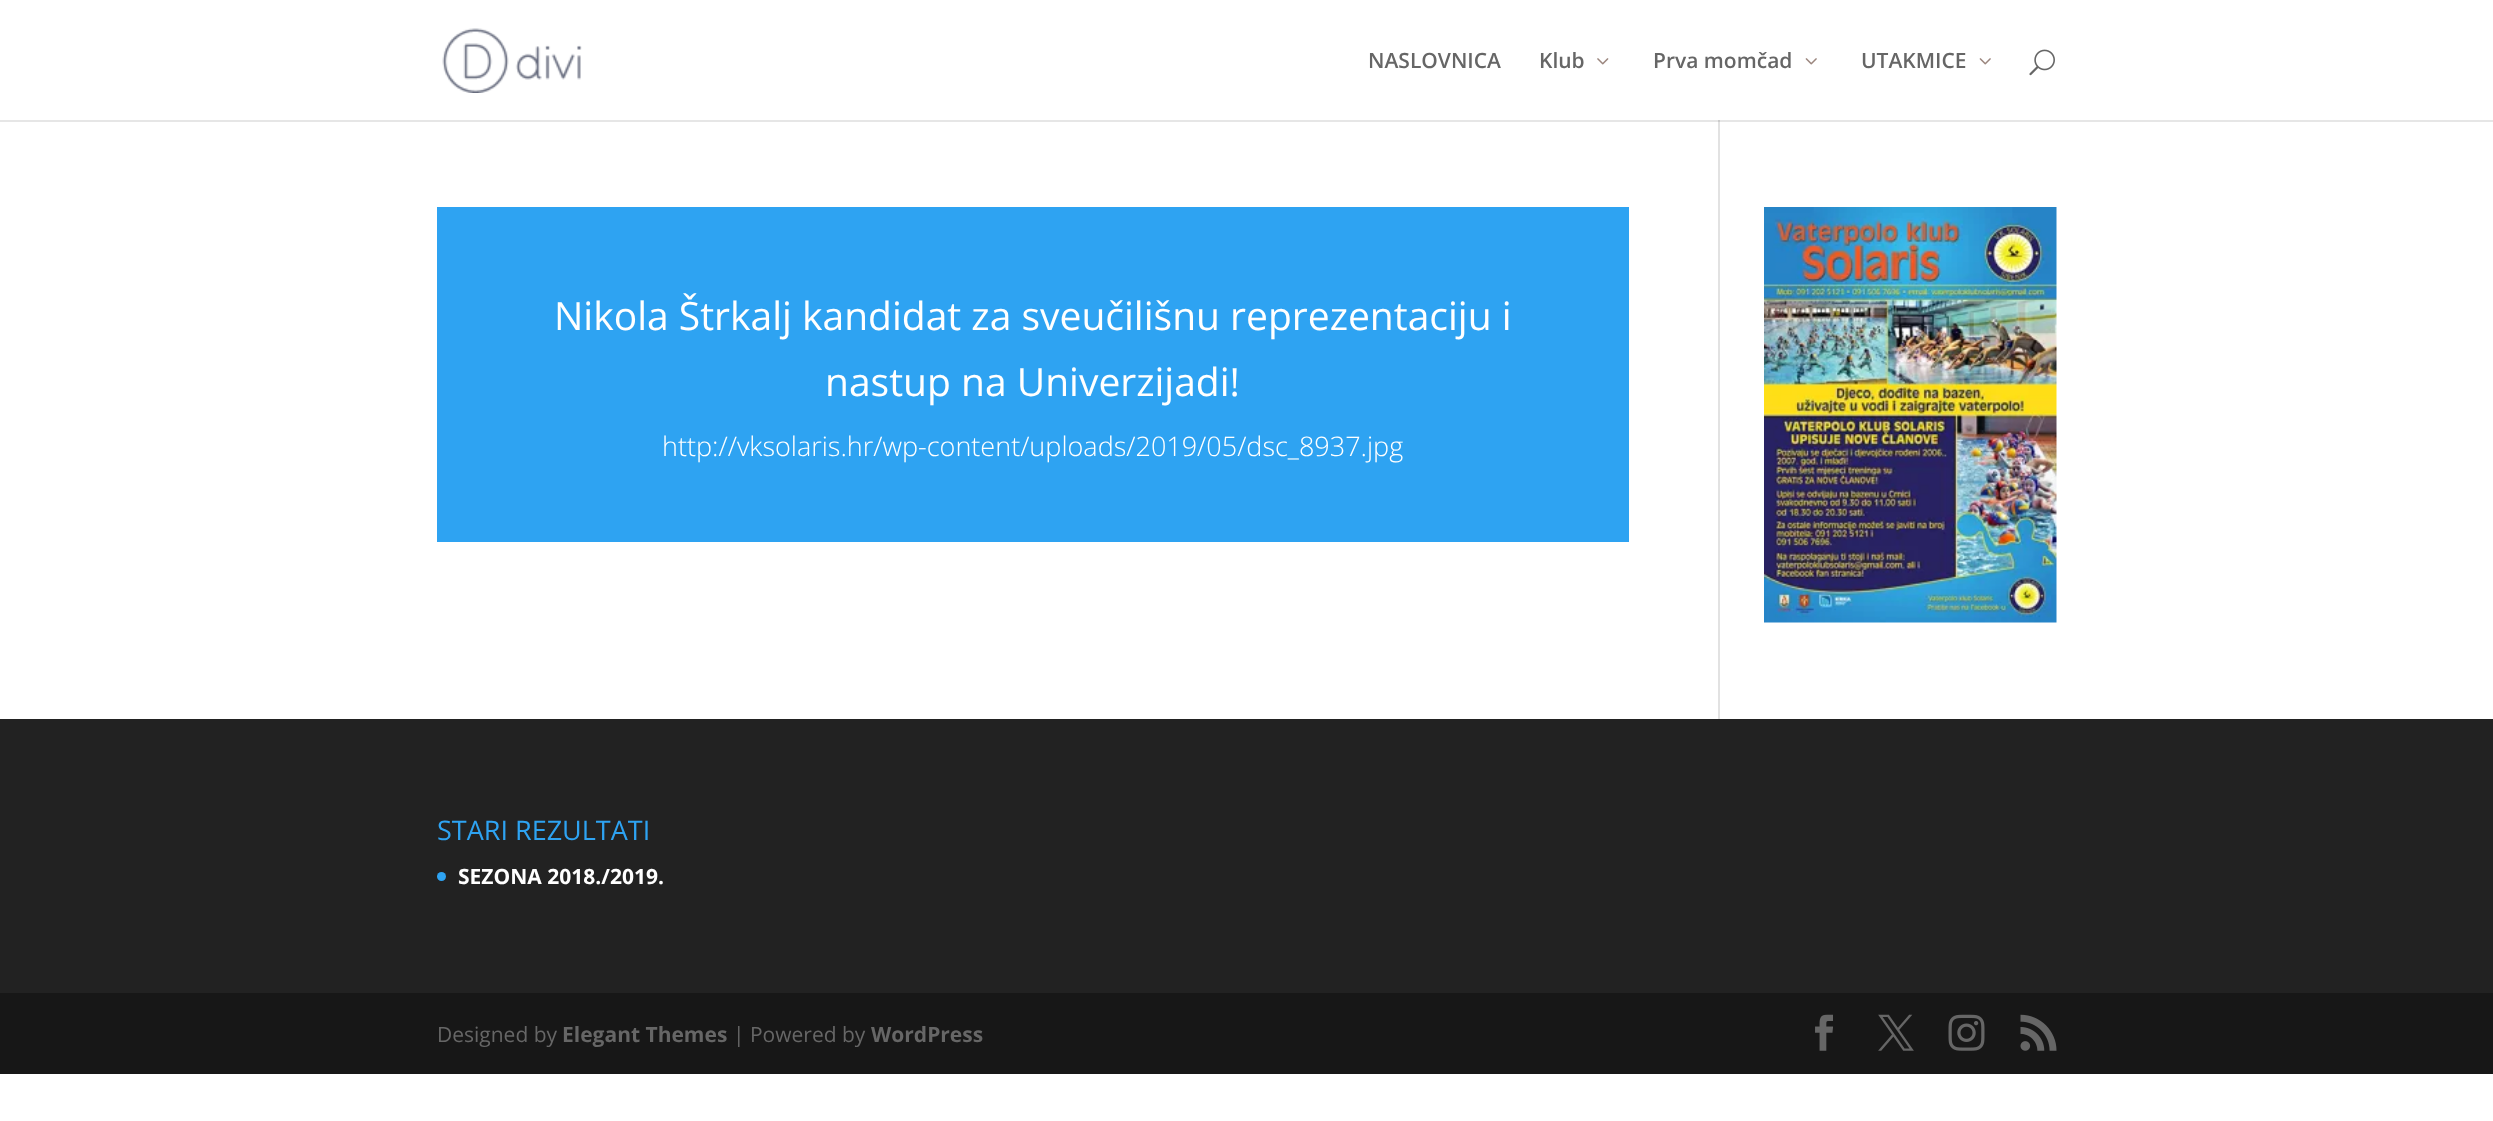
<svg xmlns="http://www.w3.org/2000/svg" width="2493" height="1121">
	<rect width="100%" height="100%" fill="#FFFFFF" />
	<rect x="0" y="120" width="2493" height="2" fill="#E6E6E6" />
	<image x="442" y="28" width="140" height="65" href="assets/img1.png" />
	<g font-family="Open Sans" font-size="21" font-weight="600" fill="#666666">
		<text x="1368" y="68">NASLOVNICA</text>
		<text x="1539" y="68">Klub</text>
	</g>
	<image x="1597" y="58" width="12" height="7" href="assets/img2.png" />
	<text x="1653" y="68" font-family="Open Sans" font-size="21" font-weight="600" fill="#666666">Prva momčad</text>
	<image x="1805" y="58" width="12" height="7" href="assets/img3.png" />
	<text x="1861" y="68" font-family="Open Sans" font-size="21" font-weight="600" fill="#666666">UTAKMICE</text>
	<image x="1979" y="58" width="12" height="7" href="assets/img3.png" />
	<image x="2029" y="49" width="26" height="27" href="assets/img4.png" />
	<rect x="437" y="207" width="1192" height="335" fill="#2EA3F2" />
	<g font-family="Open Sans" font-size="39" fill="#FFFFFF">
		<text x="554" y="330">Nikola Štrkalj kandidat za sveučilišnu reprezentaciju i</text>
		<text x="825" y="396">nastup na Univerzijadi!</text>
	</g>
	<text x="662" y="456" font-family="Open Sans" font-size="27" font-weight="300" fill="#FFFFFF">http://vksolaris.hr/wp-content/uploads/2019/05/dsc_8937.jpg</text>
	<image x="1764" y="207" width="293" height="416" href="assets/img5.png" />
	<rect x="1718" y="120" width="2" height="599" fill="#E2E2E2" />
	<rect x="1718" y="120" width="2" height="2" fill="#CBCBCB" />
	<rect x="0" y="719" width="2493" height="274" fill="#222222" />
	<text x="437" y="840" font-family="Open Sans" font-size="27" fill="#2EA3F2">STARI REZULTATI</text>
	<circle cx="441.5" cy="876.5" r="4.5" fill="#2EA3F2" />
	<text x="458" y="884" font-family="Open Sans" font-size="21" font-weight="700" fill="#FFFFFF">SEZONA 2018./2019.</text>
	<rect x="0" y="993" width="2493" height="81" fill="#171717" />
	<text x="437" y="1042" font-family="Open Sans" font-size="21" fill="#666666">Designed by</text>
	<text x="562" y="1042" font-family="Open Sans" font-size="21" font-weight="700" fill="#666666">Elegant Themes</text>
	<text x="733" y="1042" font-family="Open Sans" font-size="21" fill="#666666">| Powered by</text>
	<text x="871" y="1042" font-family="Open Sans" font-size="21" font-weight="700" fill="#666666">WordPress</text>
	<image x="1815" y="1014" width="18" height="37" href="assets/img6.png" />
	<image x="1878" y="1014" width="36" height="37" href="assets/img7.png" />
	<image x="1948" y="1014" width="37" height="37" href="assets/img8.png" />
	<image x="2020" y="1014" width="37" height="37" href="assets/img9.png" />
</svg>
